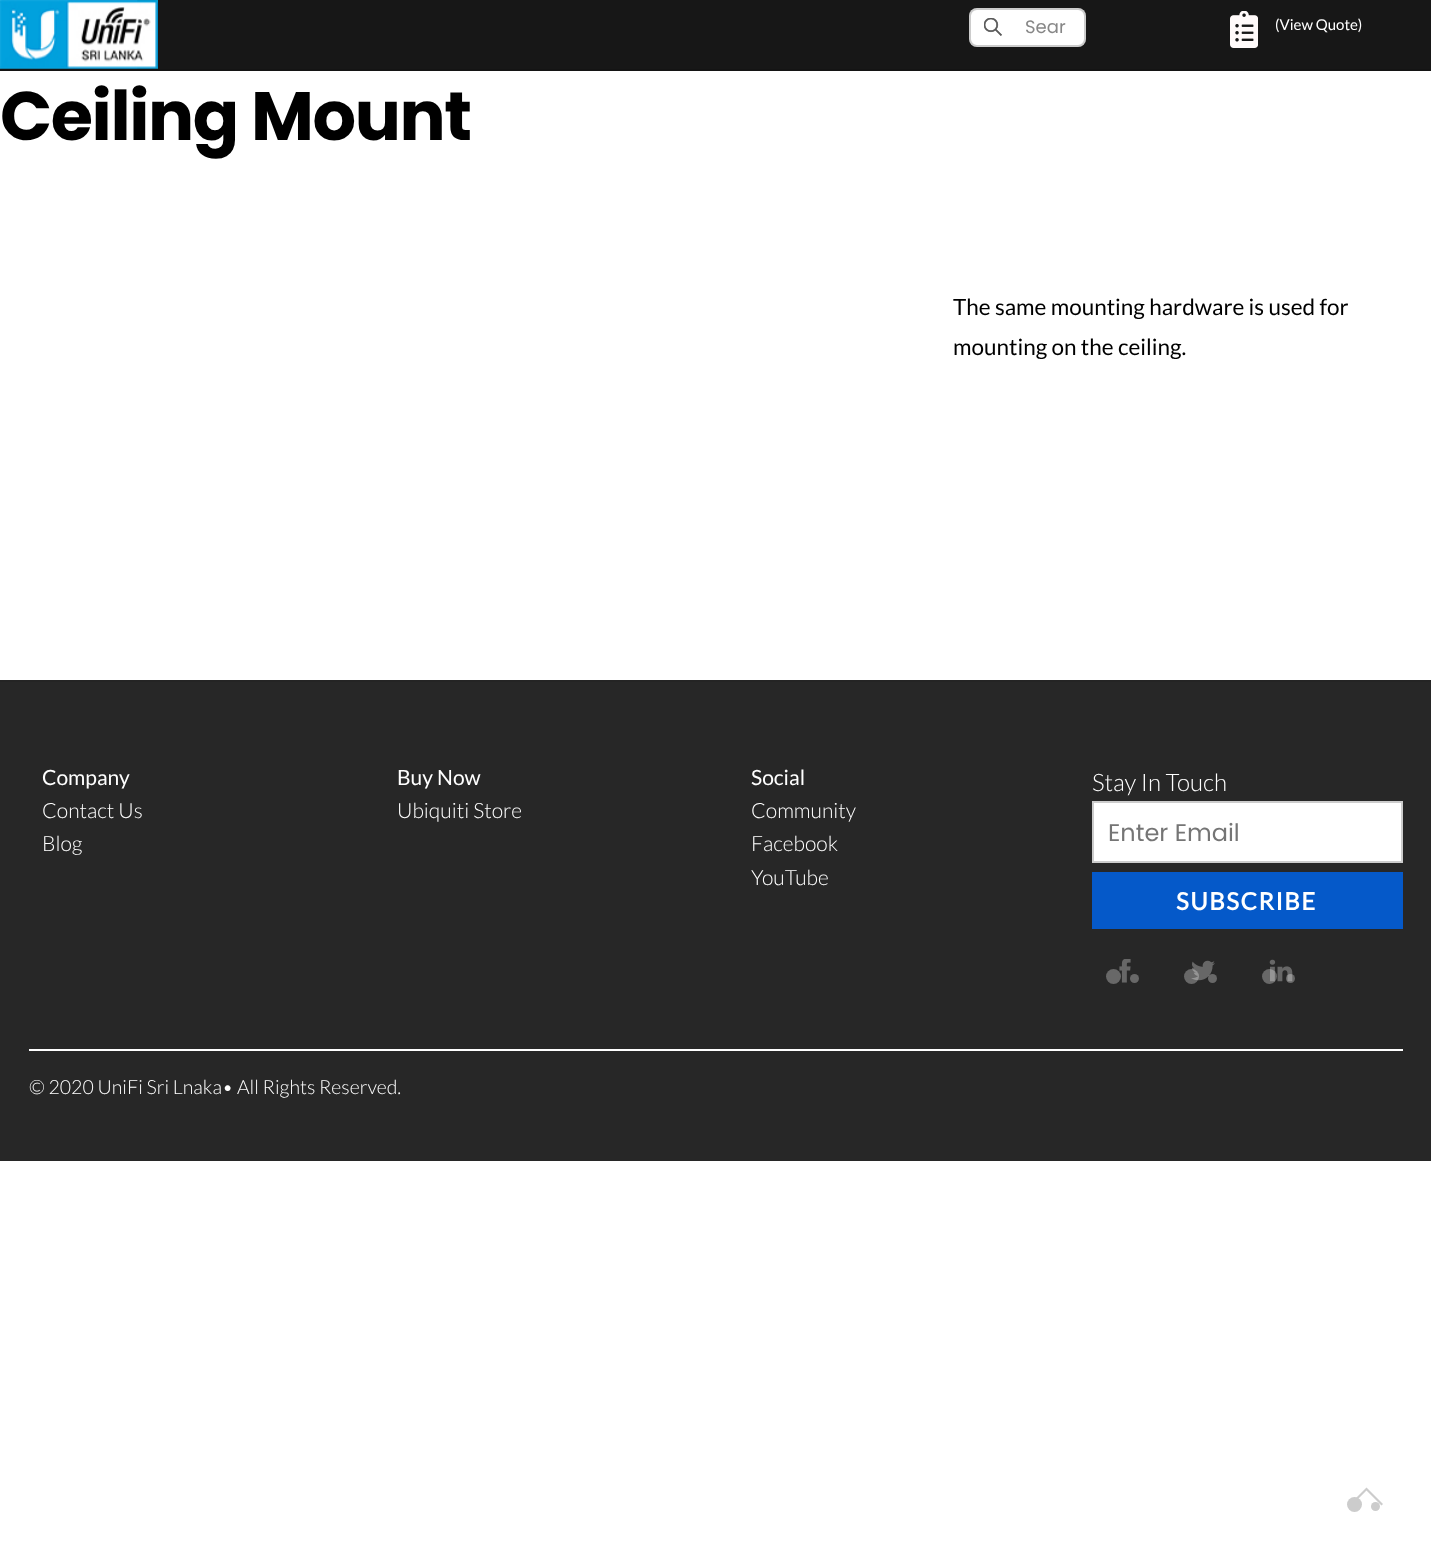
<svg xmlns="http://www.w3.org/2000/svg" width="1431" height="1564">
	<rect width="100%" height="100%" fill="#FFFFFF" />
	<rect x="0" y="0" width="1431" height="69" fill="#171717" />
	<rect x="0" y="69" width="1431" height="2" fill="#141414" />
	<image x="0" y="0" width="158" height="69" href="assets/img1.png" />
	<rect x="969" y="8" width="117" height="39" rx="8" fill="#FFFFFF" />
	<rect x="970" y="9" width="115" height="37" rx="7" fill="none" stroke="#000000" stroke-opacity="0.2" stroke-width="2" />
	<image x="984" y="18" width="18" height="18" href="assets/img2.png" />
	<text x="1025" y="33" font-family="Poppins" font-size="18" fill="#878787">Sear</text>
	<image x="1230" y="11" width="28" height="37" href="assets/img3.png" />
	<text x="1275" y="30" font-family="Lato" font-size="15" fill="#FFFFFF">(View Quote)</text>
	<text x="0" y="140" font-family="Poppins" font-size="68.5" font-weight="700" letter-spacing="-1.4" fill="#000000">Ceiling Mount</text>
	<g font-family="Lato" font-size="22.5" fill="#000000">
		<text x="953" y="315">The same mounting hardware is used for</text>
		<text x="953" y="355">mounting on the ceiling.</text>
	</g>
	<rect x="0" y="682" width="1431" height="479" fill="#272727" />
	<rect x="0" y="680" width="1431" height="2" fill="#242424" />
	<text x="42" y="785" font-family="Lato" font-size="21" fill="#FFFFFF">Company</text>
	<g font-family="Lato" font-size="21" font-weight="300" fill="#FFFFFF">
		<text x="42" y="818">Contact Us</text>
		<text x="42" y="851">Blog</text>
	</g>
	<text x="397" y="785" font-family="Lato" font-size="21" fill="#FFFFFF">Buy Now</text>
	<text x="397" y="818" font-family="Lato" font-size="21" font-weight="300" fill="#FFFFFF">Ubiquiti Store</text>
	<text x="751" y="785" font-family="Lato" font-size="21" fill="#FFFFFF">Social</text>
	<g font-family="Lato" font-size="21" font-weight="300" fill="#FFFFFF">
		<text x="751" y="818">Community</text>
		<text x="751" y="851">Facebook</text>
		<text x="751" y="885">YouTube</text>
	</g>
	<text x="1092" y="791" font-family="Lato" font-size="24" font-weight="300" fill="#FFFFFF">Stay In Touch</text>
	<rect x="1093" y="802" width="309" height="60" fill="#FFFFFF" stroke="#CCCCCC" stroke-width="2" />
	<text x="1108" y="841" font-family="Poppins" font-size="24" fill="#757575">Enter Email</text>
	<rect x="1092" y="872" width="311" height="57" fill="#0559C9" />
	<text x="1176" y="910" font-family="Lato" font-size="24" font-weight="700" letter-spacing="1.5" fill="#FFFFFF">SUBSCRIBE</text>
	<image x="1119" y="959" width="12" height="24" href="assets/img4.png" />
	<circle cx="1113.5" cy="976.5" r="7.5" fill="#686868" />
	<circle cx="1134.5" cy="978.5" r="4.5" fill="#686868" />
	<image x="1191" y="960" width="24" height="21" href="assets/img5.png" />
	<circle cx="1191.5" cy="976.5" r="7.5" fill="#FFFFFF" fill-opacity="0.3" />
	<circle cx="1212.5" cy="978.5" r="4.5" fill="#FFFFFF" fill-opacity="0.3" />
	<image x="1269" y="959" width="24" height="23" href="assets/img6.png" />
	<circle cx="1269.5" cy="976.5" r="7.5" fill="#FFFFFF" fill-opacity="0.3" />
	<circle cx="1290.5" cy="978.5" r="4.5" fill="#FFFFFF" fill-opacity="0.3" />
	<path d="M1383 1504L1366.5 1487.5L1350 1504L1351.5 1505.5L1366.5 1490.5L1381.5 1505.5Z" fill="#CCCCCC" />
	<circle cx="1354.5" cy="1504.5" r="7.5" fill="#CCCCCC" />
	<circle cx="1375.5" cy="1506.5" r="4.5" fill="#CCCCCC" />
	<rect x="29" y="1049" width="1374" height="2" fill="#FFFFFF" />
	<text x="29" y="1094" font-family="Lato" font-size="19.5" font-weight="300" fill="#FFFFFF">© 2020 UniFi Sri Lnaka• All Rights Reserved.</text>
</svg>
